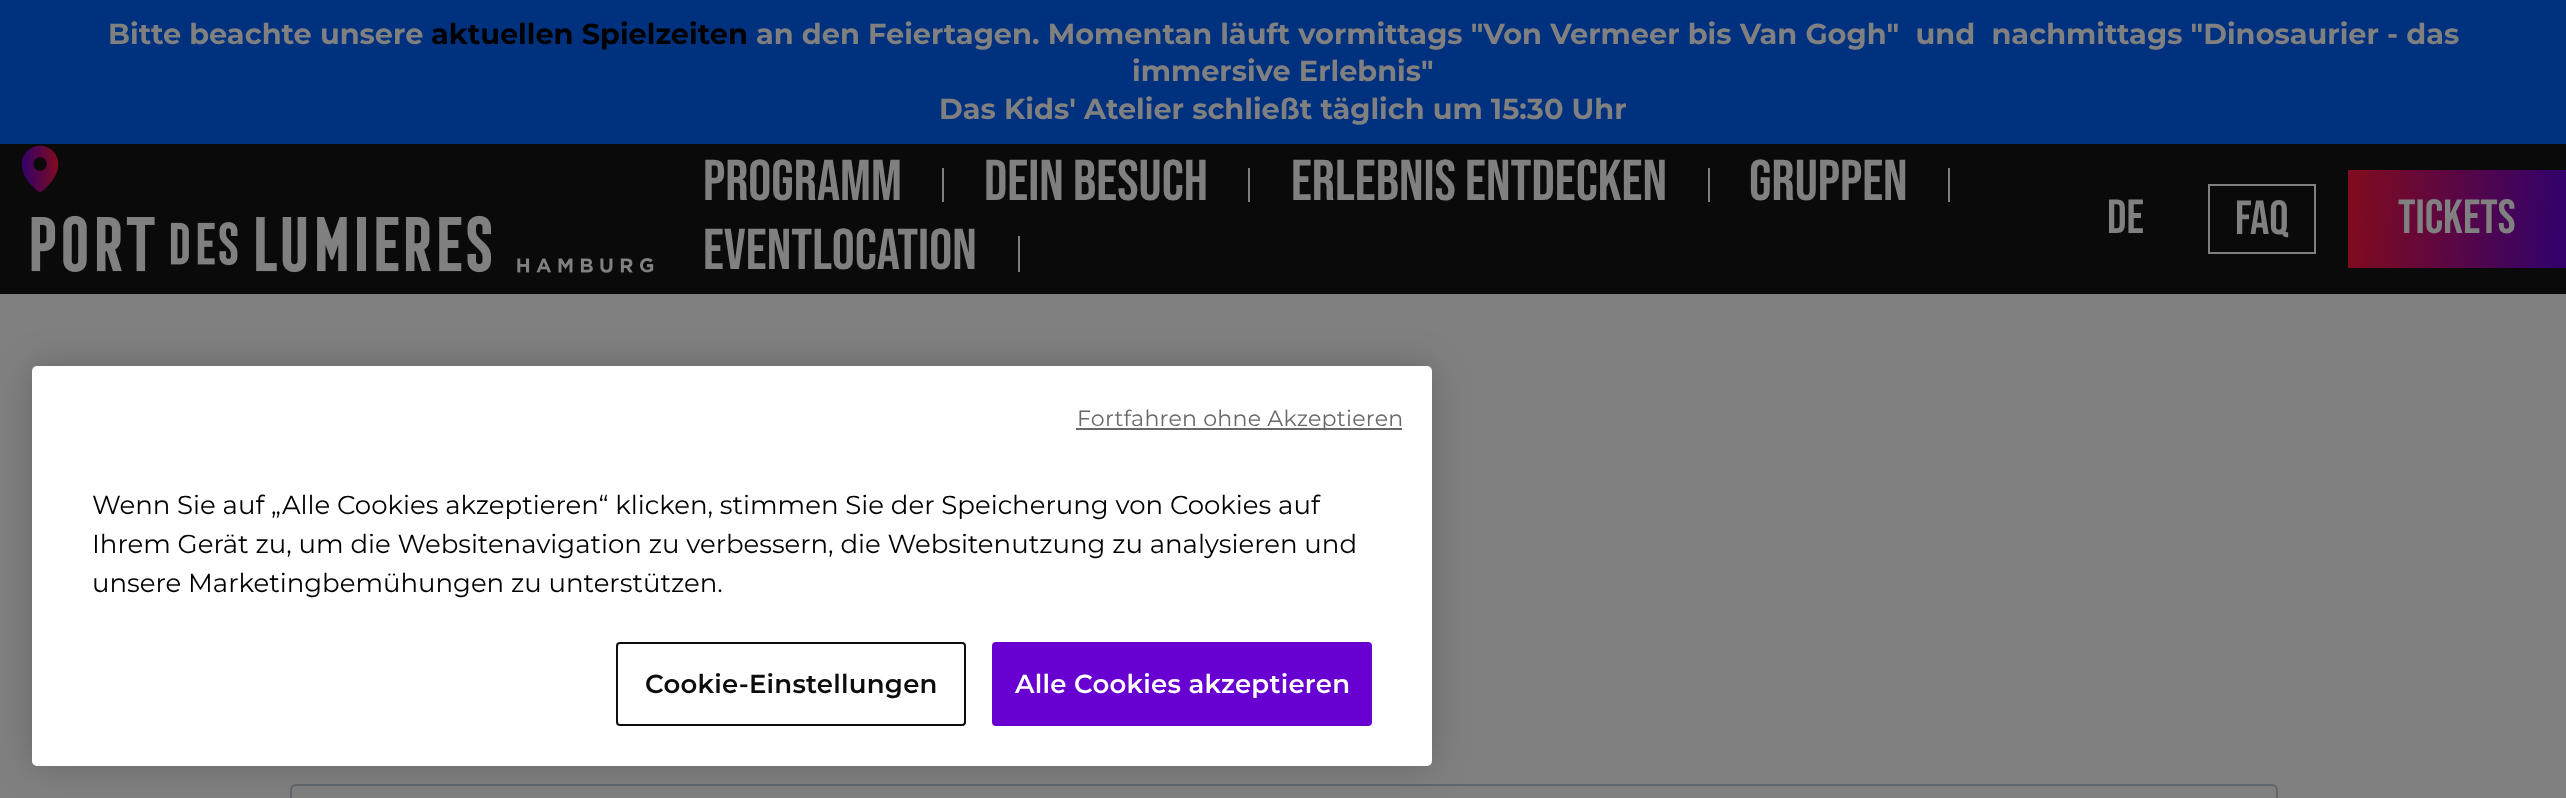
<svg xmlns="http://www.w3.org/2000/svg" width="2566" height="798">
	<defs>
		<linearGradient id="g1" gradientUnits="userSpaceOnUse" x1="2346" y1="214" x2="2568" y2="224"><stop offset="0.02" stop-color="#800B1F" /><stop offset="0.96" stop-color="#33026A" /></linearGradient>
	</defs>
	<rect width="100%" height="100%" fill="#808080" />
	<rect x="0" y="144" width="2566" height="150" fill="#0A0A0A" />
	<rect x="0" y="0" width="2566" height="144" fill="#00317F" />
	<text x="108" y="44" font-family="Montserrat" font-size="28.8" font-weight="700" fill="#808080">Bitte beachte unsere</text>
	<text x="431" y="44" font-family="Montserrat" font-size="28.8" font-weight="700" fill="#000000">aktuellen Spielzeiten</text>
	<g font-family="Montserrat" font-size="28.8" font-weight="700" fill="#808080">
		<text x="756" y="44" xml:space="preserve">an den Feiertagen. Momentan läuft vormittags "Von Vermeer bis Van Gogh"  und  nachmittags "Dinosaurier - das</text>
		<text x="1132" y="81">immersive Erlebnis"</text>
		<text x="939" y="119">Das Kids' Atelier schließt täglich um 15:30 Uhr</text>
	</g>
	<image x="21" y="145" width="41" height="48" href="assets/img1.png" />
	<image x="31" y="215" width="623" height="58" href="assets/img2.png" />
	<text x="703" y="200" font-family="Bebas Neue" font-size="57.5" fill="#808080">PROGRAMM</text>
	<rect x="942" y="168" width="2" height="34" fill="#808080" />
	<text x="984" y="200" font-family="Bebas Neue" font-size="57.5" fill="#808080">DEIN BESUCH</text>
	<rect x="1248" y="168" width="2" height="34" fill="#808080" />
	<text x="1291" y="200" font-family="Bebas Neue" font-size="57.5" fill="#808080">ERLEBNIS ENTDECKEN</text>
	<rect x="1708" y="168" width="2" height="34" fill="#808080" />
	<text x="1749" y="200" font-family="Bebas Neue" font-size="57.5" fill="#808080">GRUPPEN</text>
	<rect x="1948" y="168" width="2" height="34" fill="#808080" />
	<text x="703" y="269" font-family="Bebas Neue" font-size="57.5" fill="#808080">EVENTLOCATION</text>
	<rect x="1018" y="236" width="2" height="36" fill="#808080" />
	<text x="2107" y="233" font-family="Bebas Neue" font-size="48" fill="#808080">DE</text>
	<rect x="2209" y="185" width="106" height="68" fill="none" stroke="#808080" stroke-width="2" />
	<text x="2235" y="234" font-family="Bebas Neue" font-size="48" fill="#808080">FAQ</text>
	<rect x="2348" y="170" width="218" height="98" fill="url(#g1)" />
	<text x="2398" y="233" font-family="Bebas Neue" font-size="48" fill="#808080">Tickets</text>
	<image x="290" y="710" width="1988" height="88" href="assets/img3.png" />
	<rect x="32" y="366" width="1400" height="400" rx="5" fill="#000000" fill-opacity="0.2" filter="blur(18px)" />
	<rect x="32" y="366" width="1400" height="400" rx="5" fill="#FFFFFF" />
	<rect x="1076" y="428" width="326" height="2" fill="#696969" />
	<text x="1077" y="426" font-family="Montserrat" font-size="22.1" letter-spacing="0.25" fill="#696969">Fortfahren ohne Akzeptieren</text>
	<g font-family="Montserrat" font-size="26" fill="#000000">
		<text x="92" y="514">Wenn Sie auf „Alle Cookies akzeptieren“ klicken, stimmen Sie der Speicherung von Cookies auf</text>
		<text x="92" y="553">Ihrem Gerät zu, um die Websitenavigation zu verbessern, die Websitenutzung zu analysieren und</text>
		<text x="92" y="592">unsere Marketingbemühungen zu unterstützen.</text>
	</g>
	<rect x="617" y="643" width="348" height="82" rx="3" fill="none" stroke="#0D0D0D" stroke-width="2" />
	<text x="645" y="693" font-family="Montserrat" font-size="26" font-weight="600" letter-spacing="0.25" fill="#0D0D0D">Cookie-Einstellungen</text>
	<rect x="993" y="643" width="378" height="82" rx="3" fill="#6800D1" stroke="#6800D1" stroke-width="2" />
	<text x="1015" y="693" font-family="Montserrat" font-size="26" font-weight="600" letter-spacing="0.25" fill="#FFFFFF">Alle Cookies akzeptieren</text>
</svg>
